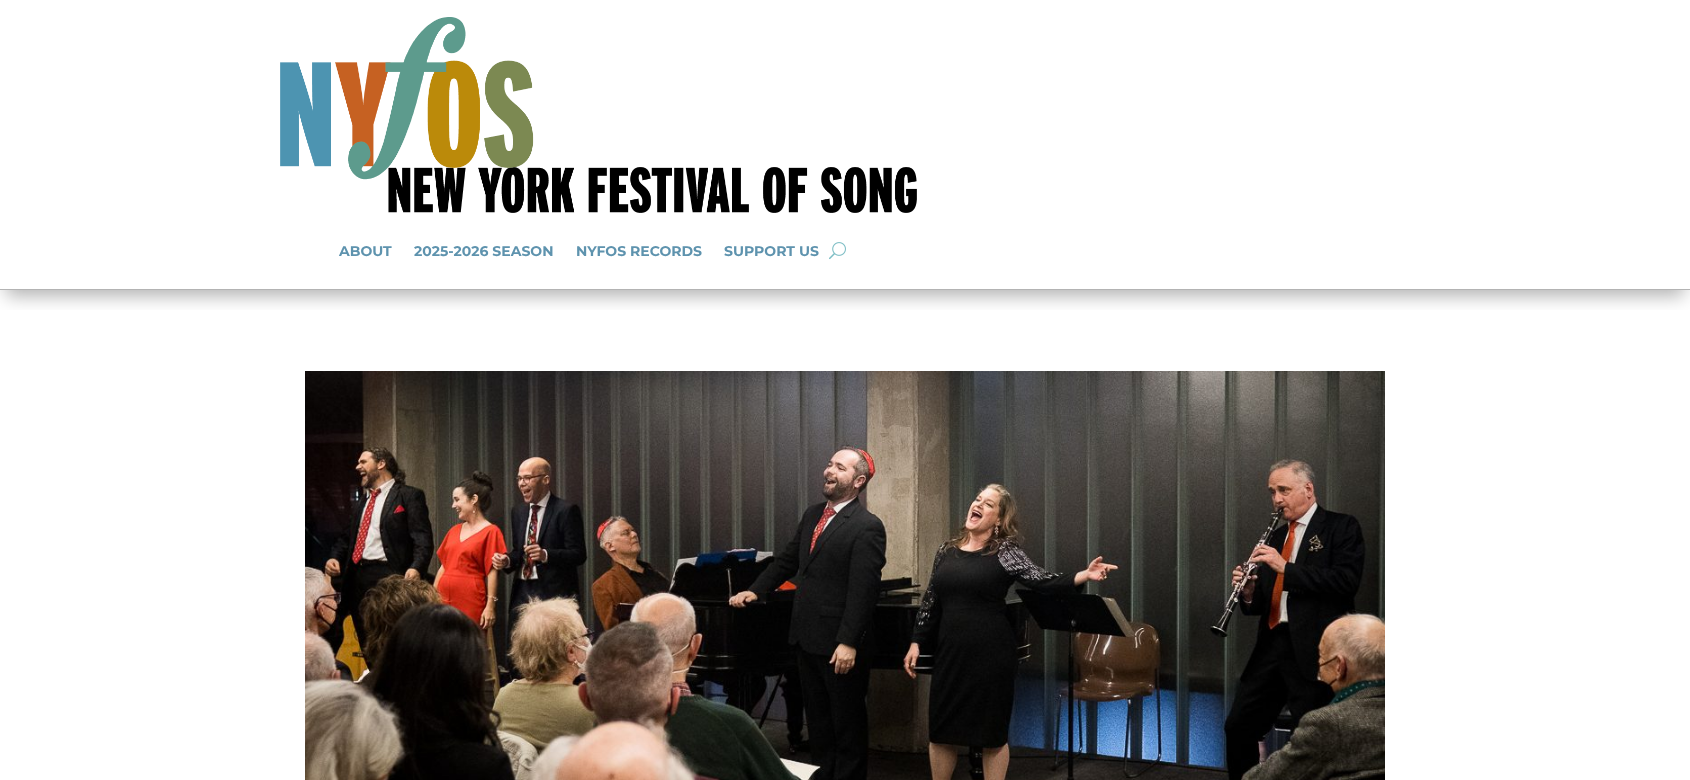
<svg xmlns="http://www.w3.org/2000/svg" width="1690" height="780">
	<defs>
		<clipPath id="clip1"><rect x="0" y="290" width="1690" height="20" /></clipPath>
	</defs>
	<rect width="100%" height="100%" fill="#FFFFFF" />
	<g clip-path="url(#clip1)">
		<rect x="6" y="35" width="1678" height="261" fill="#000000" fill-opacity="0.3" filter="blur(9px)" />
	</g>
	<rect x="0" y="289" width="1690" height="1" fill="#B3B3B3" />
	<image x="280" y="17" width="637" height="196" href="assets/img1.png" />
	<g font-family="Montserrat" font-size="14" font-weight="700" fill="#5E93AE">
		<text x="339" y="256">ABOUT</text>
		<text x="414" y="256">2025-2026 SEASON</text>
		<text x="576" y="256">NYFOS RECORDS</text>
		<text x="724" y="256">SUPPORT US</text>
	</g>
	<image x="829" y="242" width="17" height="18" href="assets/img2.png" />
	<image x="305" y="371" width="1080" height="409" href="assets/img3.png" />
</svg>
